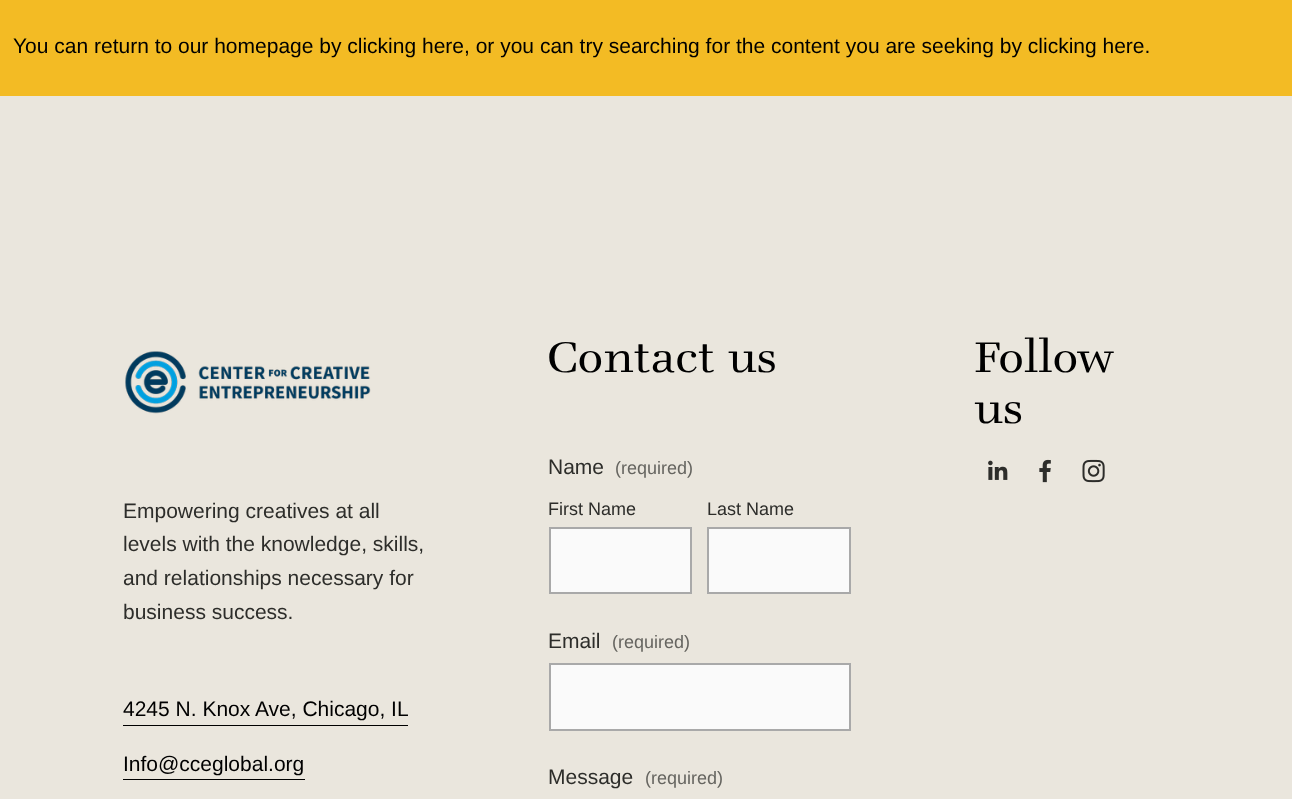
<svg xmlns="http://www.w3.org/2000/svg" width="1292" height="799">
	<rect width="100%" height="100%" fill="#F3BB24" />
	<text x="13" y="53" font-family="Liberation Sans" font-size="21" fill="#000000">You can return to our homepage by clicking here, or you can try searching for the content you are seeking by clicking here.</text>
	<rect x="0" y="96" width="1292" height="703" fill="#EAE6DD" />
	<image x="125" y="351" width="246" height="63" href="assets/img1.png" />
	<g font-family="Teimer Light" font-size="41" font-weight="300" fill="#000000">
		<text x="548" y="372">Contact us</text>
		<text x="974" y="372">Follow</text>
		<text x="974" y="423">us</text>
	</g>
	<text x="548" y="474" font-family="Liberation Sans" font-size="21" fill="#2D2D2A">Name</text>
	<text x="615" y="474" font-family="Liberation Sans" font-size="18" fill="#666560">(required)</text>
	<text x="548" y="515" font-family="Liberation Sans" font-size="18" fill="#2D2D2A">First Name</text>
	<rect x="550" y="528" width="141" height="65" fill="#FAFAFA" stroke="#A9A9A9" stroke-width="2" />
	<text x="707" y="515" font-family="Liberation Sans" font-size="18" fill="#2D2D2A">Last Name</text>
	<rect x="708" y="528" width="142" height="65" fill="#FAFAFA" stroke="#A9A9A9" stroke-width="2" />
	<text x="548" y="648" font-family="Liberation Sans" font-size="21" fill="#2D2D2A">Email</text>
	<text x="612" y="648" font-family="Liberation Sans" font-size="18" fill="#666560">(required)</text>
	<rect x="550" y="664" width="300" height="66" fill="#FAFAFA" stroke="#A9A9A9" stroke-width="2" />
	<text x="548" y="784" font-family="Liberation Sans" font-size="21" fill="#2D2D2A">Message</text>
	<text x="645" y="784" font-family="Liberation Sans" font-size="18" fill="#666560">(required)</text>
	<image x="988" y="460" width="20" height="20" href="assets/img2.png" />
	<image x="1039" y="459" width="12" height="24" href="assets/img3.png" />
	<image x="1082" y="459" width="23" height="24" href="assets/img4.png" />
	<g font-family="Liberation Sans" font-size="21" fill="#2D2D2A">
		<text x="123" y="518">Empowering creatives at all</text>
		<text x="123" y="551">levels with the knowledge, skills,</text>
		<text x="123" y="585">and relationships necessary for</text>
		<text x="123" y="619">business success.</text>
	</g>
	<rect x="123" y="725" width="285" height="1" fill="#000000" />
	<text x="123" y="716" font-family="Liberation Sans" font-size="21" fill="#000000">4245 N. Knox Ave, Chicago, IL</text>
	<rect x="123" y="779" width="182" height="1" fill="#000000" />
	<text x="123" y="771" font-family="Liberation Sans" font-size="21" fill="#000000">Info@cceglobal.org</text>
</svg>
